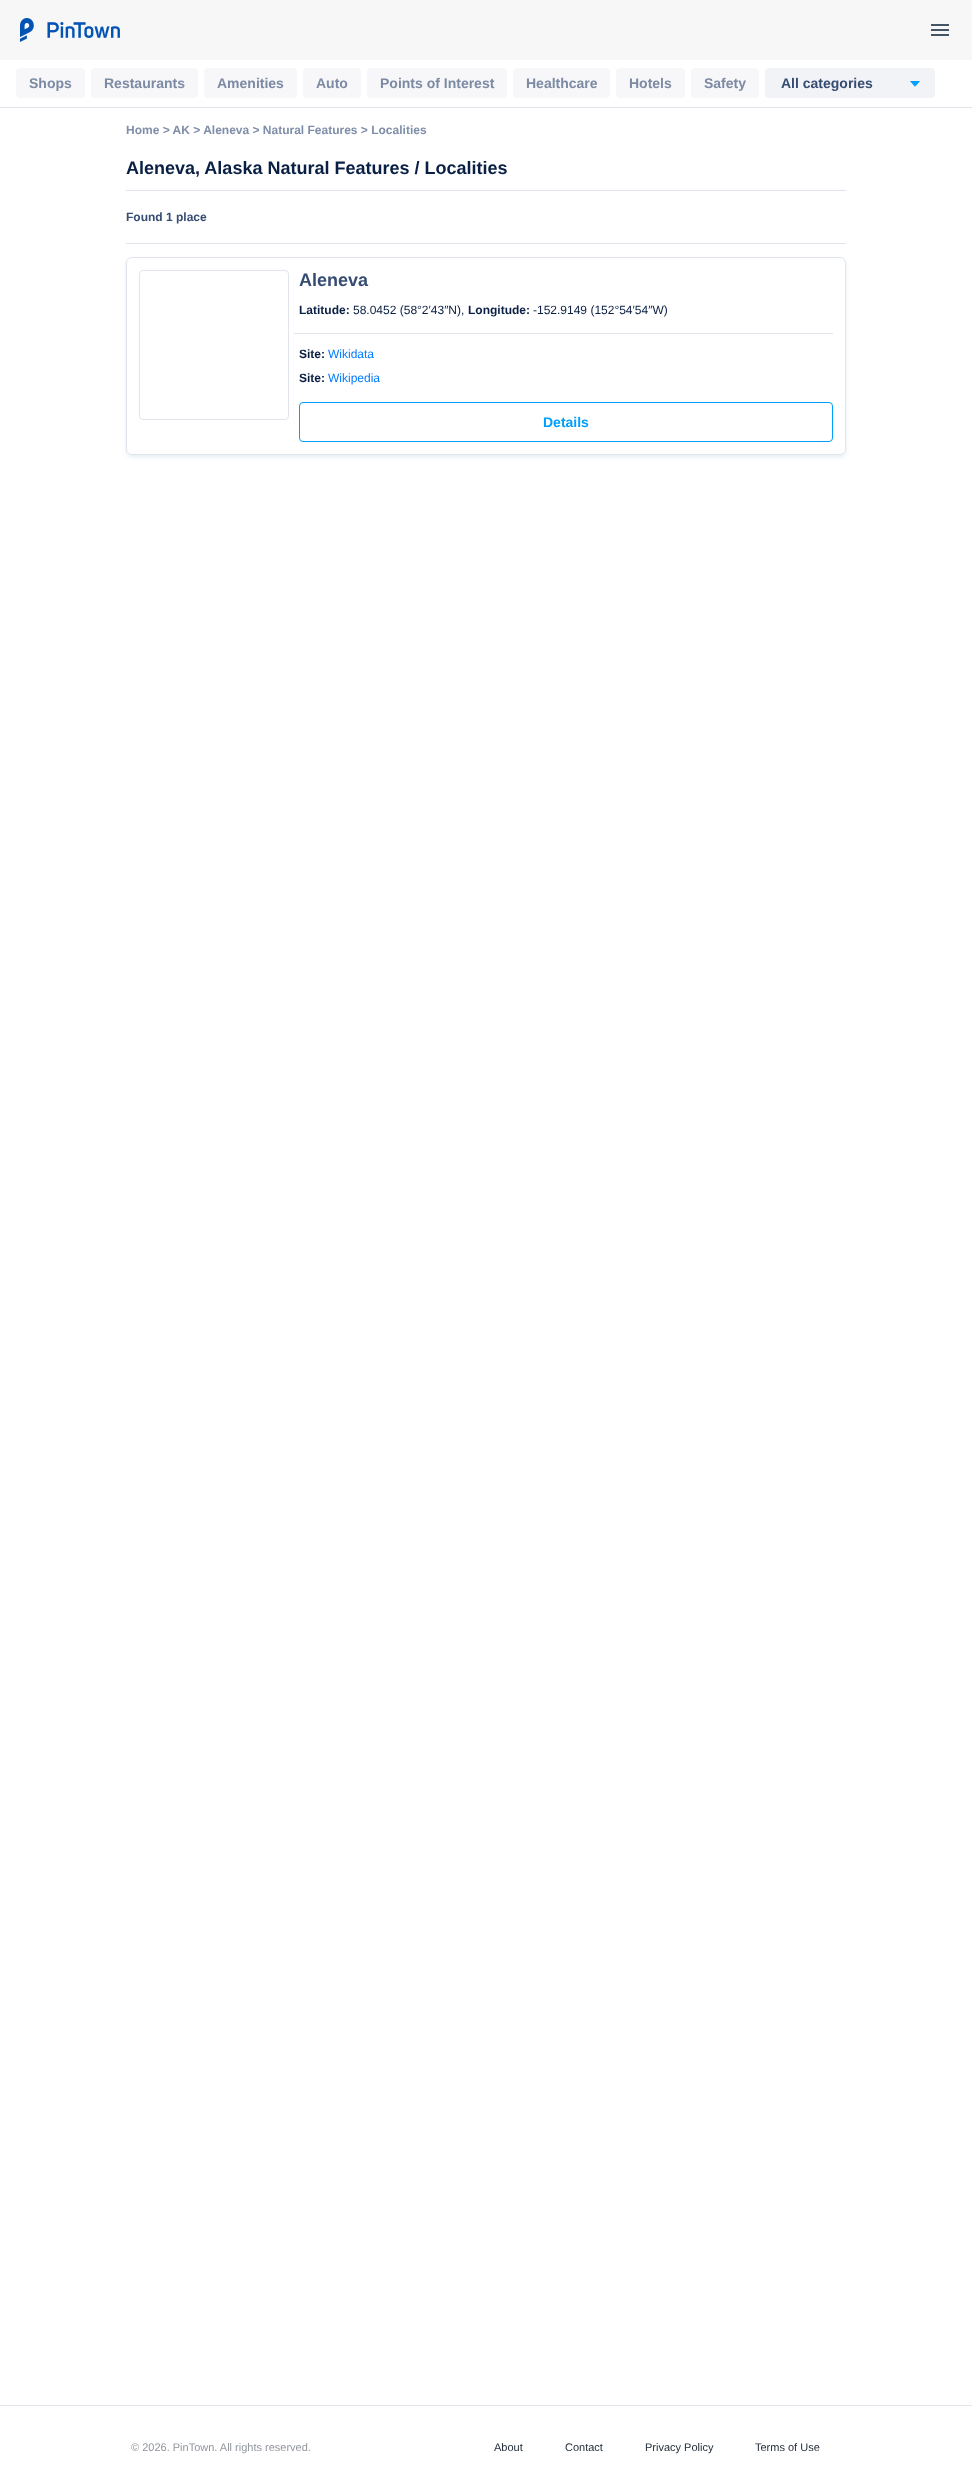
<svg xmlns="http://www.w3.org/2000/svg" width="972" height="2487">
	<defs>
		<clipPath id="clip1"><path d="M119 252H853V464H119ZM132 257H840C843.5 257 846 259.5 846 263V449C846 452.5 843.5 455 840 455H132C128.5 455 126 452.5 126 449V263C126 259.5 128.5 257 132 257Z" clip-rule="evenodd" /></clipPath>
	</defs>
	<rect width="100%" height="100%" fill="#FFFFFF" />
	<rect x="0" y="0" width="972" height="60" fill="#F7F7F7" />
	<image x="20" y="18" width="100" height="24" href="assets/img1.png" />
	<image x="931" y="24" width="18" height="12" href="assets/img2.png" />
	<rect x="0" y="107" width="972" height="1" fill="#E1E5EB" />
	<rect x="16" y="68" width="69" height="30" rx="4" fill="#F7F7F9" />
	<text x="29" y="88" font-family="Liberation Sans" font-size="14" font-weight="700" fill="#7C8BA3">Shops</text>
	<rect x="91" y="68" width="107" height="30" rx="4" fill="#F7F7F9" />
	<text x="104" y="88" font-family="Liberation Sans" font-size="14" font-weight="700" fill="#7C8BA3">Restaurants</text>
	<rect x="204" y="68" width="93" height="30" rx="4" fill="#F7F7F9" />
	<text x="217" y="88" font-family="Liberation Sans" font-size="14" font-weight="700" fill="#7C8BA3">Amenities</text>
	<rect x="303" y="68" width="58" height="30" rx="4" fill="#F7F7F9" />
	<text x="316" y="88" font-family="Liberation Sans" font-size="14" font-weight="700" fill="#7C8BA3">Auto</text>
	<rect x="367" y="68" width="140" height="30" rx="4" fill="#F7F7F9" />
	<text x="380" y="88" font-family="Liberation Sans" font-size="14" font-weight="700" fill="#7C8BA3">Points of Interest</text>
	<rect x="513" y="68" width="97" height="30" rx="4" fill="#F7F7F9" />
	<text x="526" y="88" font-family="Liberation Sans" font-size="14" font-weight="700" fill="#7C8BA3">Healthcare</text>
	<rect x="616" y="68" width="69" height="30" rx="4" fill="#F7F7F9" />
	<text x="629" y="88" font-family="Liberation Sans" font-size="14" font-weight="700" fill="#7C8BA3">Hotels</text>
	<rect x="691" y="68" width="68" height="30" rx="4" fill="#F7F7F9" />
	<text x="704" y="88" font-family="Liberation Sans" font-size="14" font-weight="700" fill="#7C8BA3">Safety</text>
	<rect x="765" y="68" width="170" height="30" rx="4" fill="#F2F3F6" />
	<text x="781" y="88" font-family="Liberation Sans" font-size="14" font-weight="700" fill="#364C72">All categories</text>
	<image x="910" y="81" width="10" height="6" href="assets/img3.png" />
	<text x="126" y="134" font-family="Liberation Sans" font-size="12" font-weight="700" fill="#7F8EA9">Home &gt; AK &gt; Aleneva &gt; Natural Features &gt; Localities</text>
	<rect x="126" y="190" width="720" height="1" fill="#E1E5EB" />
	<text x="126" y="174" font-family="Liberation Sans" font-size="18" font-weight="700" fill="#0A1F44">Aleneva, Alaska Natural Features / Localities</text>
	<rect x="126" y="243" width="720" height="1" fill="#E1E5EB" />
	<text x="126" y="221" font-family="Liberation Sans" font-size="12" font-weight="700" fill="#364C72">Found 1 place</text>
	<g clip-path="url(#clip1)">
		<rect x="126" y="259" width="720" height="198" rx="6" fill="#005689" fill-opacity="0.1" filter="blur(2px)" />
	</g>
	<rect x="126.5" y="257.5" width="719" height="197" rx="5.5" fill="none" stroke="#E1E5EB" />
	<rect x="139.5" y="270.5" width="149" height="149" rx="3.5" fill="none" stroke="#E1E5EB" />
	<text x="299" y="286" font-family="Liberation Sans" font-size="18" font-weight="700" fill="#364C72">Aleneva</text>
	<text x="299" y="314" font-family="Liberation Sans" font-size="12" font-weight="700" fill="#0A1F44">Latitude:</text>
	<text x="353" y="314" font-family="Liberation Sans" font-size="12" fill="#0A1F44">58.0452 (58°2′43″N),</text>
	<text x="468" y="314" font-family="Liberation Sans" font-size="12" font-weight="700" fill="#0A1F44">Longitude:</text>
	<text x="533" y="314" font-family="Liberation Sans" font-size="12" fill="#0A1F44">-152.9149 (152°54′54″W)</text>
	<rect x="294" y="333" width="539" height="1" fill="#E1E5EB" />
	<text x="299" y="358" font-family="Liberation Sans" font-size="12" font-weight="700" fill="#0A1F44">Site:</text>
	<text x="328" y="358" font-family="Liberation Sans" font-size="12" fill="#007BFF">Wikidata</text>
	<text x="299" y="382" font-family="Liberation Sans" font-size="12" font-weight="700" fill="#0A1F44">Site:</text>
	<text x="328" y="382" font-family="Liberation Sans" font-size="12" fill="#007BFF">Wikipedia</text>
	<rect x="299.5" y="402.5" width="533" height="39" rx="3.5" fill="none" stroke="#009FFE" />
	<text x="543" y="427" font-family="Liberation Sans" font-size="14" font-weight="700" fill="#009FFE">Details</text>
	<rect x="0" y="2405" width="972" height="1" fill="#E1E5EB" />
	<text x="131" y="2451" font-family="Liberation Sans" font-size="11" fill="#92979E">© 2026. PinTown. All rights reserved.</text>
	<g font-family="Liberation Sans" font-size="11" fill="#252F3C">
		<text x="494" y="2451">About</text>
		<text x="565" y="2451">Contact</text>
		<text x="645" y="2451">Privacy Policy</text>
		<text x="755" y="2451">Terms of Use</text>
	</g>
</svg>
